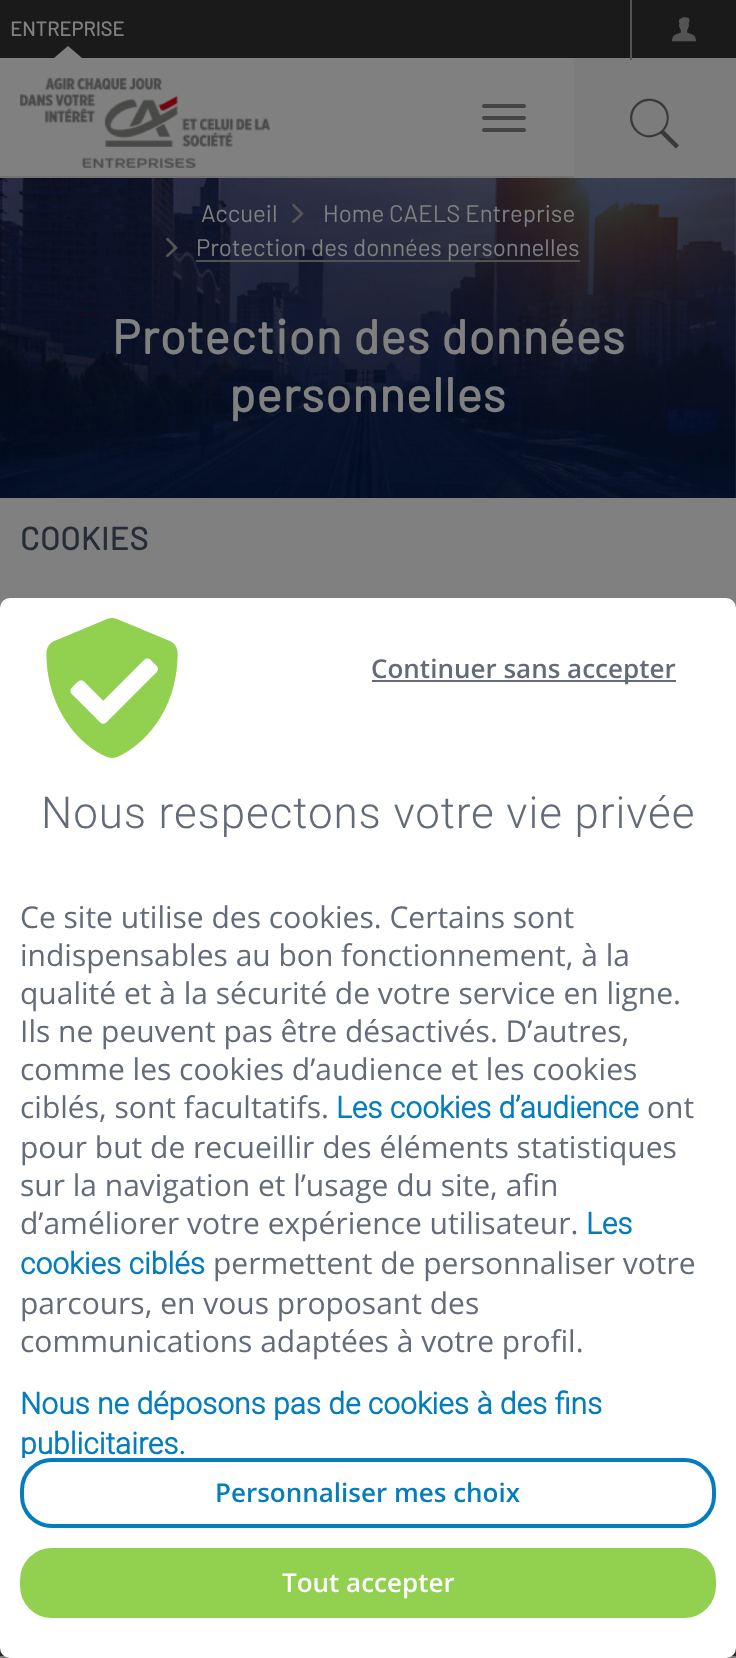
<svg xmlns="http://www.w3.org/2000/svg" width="736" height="1658">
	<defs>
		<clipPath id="clip1"><rect x="0" y="618" width="736" height="840" /></clipPath>
	</defs>
	<rect width="100%" height="100%" fill="#808080" />
	<rect x="0" y="0" width="736" height="58" fill="#1A1A1A" />
	<text x="10" y="36" font-family="Barlow" font-size="20" font-weight="700" fill="#808080">ENTREPRISE</text>
	<path d="M82 58H54L68 46Z" fill="#808080" />
	<rect x="574" y="58" width="162" height="120" fill="#7C7C7C" />
	<rect x="630" y="0" width="2" height="60" fill="#555555" />
	<image x="672" y="17" width="24" height="25" href="assets/img1.png" />
	<rect x="0" y="176" width="574" height="2" fill="#727272" />
	<image x="20" y="78" width="250" height="90" href="assets/img2.png" />
	<rect x="482" y="104" width="44" height="4" rx="2" fill="#444444" />
	<rect x="482" y="116" width="44" height="4" rx="2" fill="#444444" />
	<rect x="482" y="128" width="44" height="4" rx="2" fill="#444444" />
	<image x="630" y="98" width="49" height="51" href="assets/img3.png" />
	<image x="0" y="178" width="736" height="320" href="assets/img4.png" />
	<text x="201" y="222" font-family="Barlow" font-size="24" fill="#808080">Accueil</text>
	<image x="292" y="203" width="12" height="20" href="assets/img5.png" />
	<text x="323" y="222" font-family="Barlow" font-size="24" fill="#808080">Home CAELS Entreprise</text>
	<image x="166" y="237" width="12" height="20" href="assets/img6.png" />
	<rect x="196" y="260" width="384" height="2" fill="#525252" />
	<text x="196" y="256" font-family="Barlow" font-size="24" fill="#808080">Protection des données personnelles</text>
	<g font-family="Barlow" font-size="48" font-weight="700" letter-spacing="1" fill="#808080">
		<text x="112" y="354">Protection des données</text>
		<text x="229" y="412">personnelles</text>
	</g>
	<text x="20" y="550" font-family="Barlow" font-size="32" font-weight="700" letter-spacing="0.5" fill="#262D38">COOKIES</text>
	<rect x="0" y="1648" width="736" height="8" fill="#262D38" />
	<rect x="0" y="598" width="736" height="1060" rx="10" fill="#FFFFFF" />
	<rect x="372" y="680" width="304" height="2" fill="#646B78" />
	<text x="371" y="678" font-family="Open Sans" font-size="26" font-weight="600" fill="#646B78">Continuer sans accepter</text>
	<rect x="22" y="1460" width="692" height="66" rx="30" fill="none" stroke="#057DBC" stroke-width="4" />
	<text x="215" y="1502" font-family="Open Sans" font-size="26" font-weight="600" fill="#057DBC">Personnaliser mes choix</text>
	<rect x="22" y="1550" width="692" height="66" rx="30" fill="#92D050" stroke="#92D050" stroke-width="4" />
	<text x="282" y="1592" font-family="Open Sans" font-size="26" font-weight="600" fill="#FFFFFF">Tout accepter</text>
	<image x="46" y="618" width="132" height="140" href="assets/img7.png" />
	<text x="41" y="828" font-family="Roboto" font-size="44" font-weight="300" letter-spacing="0.9" fill="#646B78">Nous respectons votre vie privée</text>
	<g font-family="Open Sans" font-size="30" fill="#646B78">
		<text x="20" y="928">Ce site utilise des cookies. Certains sont</text>
		<text x="20" y="966">indispensables au bon fonctionnement, à la</text>
		<text x="20" y="1004">qualité et à la sécurité de votre service en ligne.</text>
		<text x="20" y="1042">Ils ne peuvent pas être désactivés. D’autres,</text>
		<text x="20" y="1080">comme les cookies d’audience et les cookies</text>
		<text x="20" y="1118">ciblés, sont facultatifs.</text>
	</g>
	<text x="336" y="1118" font-family="Roboto" font-size="30" font-weight="700" fill="#057DBC">Les cookies d’audience</text>
	<g font-family="Open Sans" font-size="30" fill="#646B78">
		<text x="647" y="1118">ont</text>
		<text x="20" y="1158">pour but de recueillir des éléments statistiques</text>
		<text x="20" y="1196">sur la navigation et l’usage du site, afin</text>
		<text x="20" y="1234">d’améliorer votre expérience utilisateur.</text>
	</g>
	<g font-family="Roboto" font-size="30" font-weight="700" fill="#057DBC">
		<text x="586" y="1234">Les</text>
		<text x="20" y="1274">cookies ciblés</text>
	</g>
	<g font-family="Open Sans" font-size="30" fill="#646B78">
		<text x="213" y="1274">permettent de personnaliser votre</text>
		<text x="20" y="1314">parcours, en vous proposant des</text>
		<text x="20" y="1352">communications adaptées à votre profil.</text>
	</g>
	<text x="20" y="1414" font-family="Roboto" font-size="30" font-weight="700" fill="#057DBC">Nous ne déposons pas de cookies à des fins</text>
	<g clip-path="url(#clip1)">
		<text x="20" y="1454" font-family="Roboto" font-size="30" font-weight="700" fill="#057DBC">publicitaires.</text>
	</g>
</svg>
